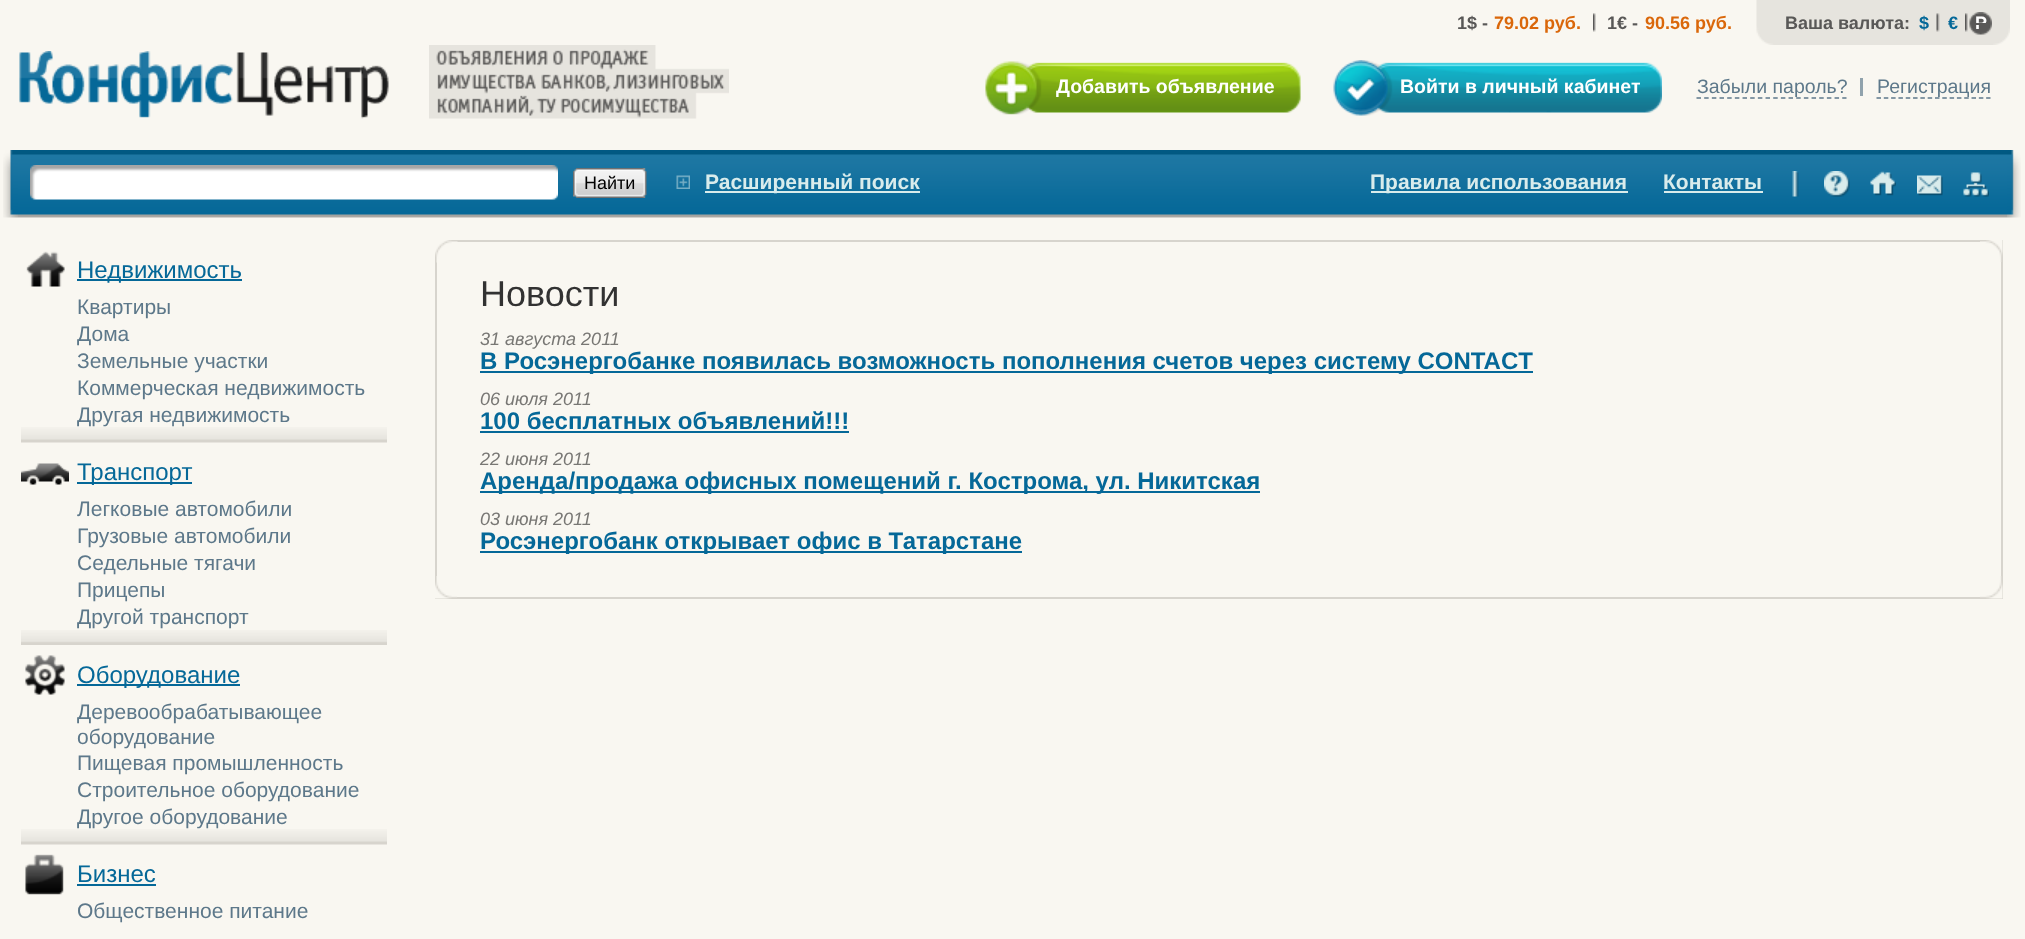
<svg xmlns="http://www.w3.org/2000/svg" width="2025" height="939">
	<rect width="100%" height="100%" fill="#F9F7F1" />
	<text x="1457" y="29" font-family="Liberation Sans" font-size="18" font-weight="700" fill="#595857">1$ -</text>
	<text x="1494" y="29" font-family="Liberation Sans" font-size="18" font-weight="700" fill="#DA670A">79.02 руб.</text>
	<image x="1593" y="13" width="3" height="19" href="assets/img1.png" />
	<text x="1607" y="29" font-family="Liberation Sans" font-size="18" font-weight="700" fill="#595857">1€ -</text>
	<text x="1645" y="29" font-family="Liberation Sans" font-size="18" font-weight="700" fill="#DA670A">90.56 руб.</text>
	<image x="1756" y="0" width="254" height="45" href="assets/img2.png" />
	<text x="1785" y="29" font-family="Liberation Sans" font-size="18" font-weight="700" fill="#595857">Ваша валюта:</text>
	<text x="1919" y="29" font-family="Liberation Sans" font-size="18" font-weight="700" fill="#056898">$</text>
	<image x="1936" y="13" width="4" height="19" href="assets/img3.png" />
	<text x="1948" y="29" font-family="Liberation Sans" font-size="18" font-weight="700" fill="#056898">€</text>
	<image x="1965" y="13" width="3" height="19" href="assets/img4.png" />
	<image x="1969" y="12" width="23" height="23" href="assets/img5.png" />
	<text x="1975" y="29" font-family="Liberation Sans" font-size="18" font-weight="700" fill="#FFFFFF">Р</text>
	<rect x="1976" y="23" width="12" height="2" fill="#595857" />
	<image x="19" y="51" width="370" height="68" href="assets/img6.png" />
	<image x="429" y="45" width="300" height="74" href="assets/img7.png" />
	<image x="985" y="61" width="316" height="54" href="assets/img8.png" />
	<text x="1056" y="93" font-family="Liberation Sans" font-size="19.5" font-weight="700" fill="#FFFFFF">Добавить объявление</text>
	<image x="1333" y="60" width="329" height="56" href="assets/img9.png" />
	<text x="1400" y="93" font-family="Liberation Sans" font-size="19.5" font-weight="700" fill="#FFFFFF">Войти в личный кабинет</text>
	<path d="M1696.5 98H1846.5" fill="none" stroke="#5D788A" stroke-width="1.5" stroke-dasharray="4.5 3.17" />
	<text x="1697" y="93" font-family="Liberation Sans" font-size="19.5" fill="#5D788A">Забыли пароль?</text>
	<rect x="1860" y="78" width="3" height="18" fill="#90A2AC" />
	<path d="M1876.5 98H1990.5" fill="none" stroke="#5D788A" stroke-width="1.5" stroke-dasharray="4.5 2.81" />
	<text x="1877" y="93" font-family="Liberation Sans" font-size="19.5" fill="#5D788A">Регистрация</text>
	<image x="3" y="150" width="15" height="68" href="assets/img10.png" />
	<image x="2007" y="150" width="14" height="68" href="assets/img11.png" />
	<image x="18" y="150" width="1989" height="68" href="assets/img12.png" />
	<image x="30" y="165" width="528" height="35" href="assets/img13.png" />
	<image x="573" y="168" width="74" height="30" href="assets/img14.png" />
	<text x="584" y="189" font-family="Liberation Sans" font-size="18" fill="#000000">Найти</text>
	<image x="676" y="175" width="14" height="14" href="assets/img15.png" />
	<rect x="705" y="191" width="215" height="2" fill="#D9ECEC" />
	<text x="705" y="189" font-family="Liberation Sans" font-size="21" font-weight="700" fill="#D9ECEC">Расширенный поиск</text>
	<rect x="1371" y="191" width="257" height="2" fill="#D9ECEC" />
	<g font-family="Liberation Sans" font-size="21" font-weight="700" fill="#D9ECEC">
		<text x="1370" y="189">Правила использования</text>
		<text x="1663" y="189">Контакты</text>
	</g>
	<rect x="1664" y="191" width="99" height="2" fill="#D9ECEC" />
	<image x="1792" y="171" width="7" height="26" href="assets/img16.png" />
	<image x="1824" y="171" width="26" height="26" href="assets/img17.png" />
	<image x="1870" y="171" width="26" height="25" href="assets/img18.png" />
	<image x="1917" y="175" width="26" height="21" href="assets/img19.png" />
	<image x="1963" y="172" width="26" height="25" href="assets/img20.png" />
	<image x="21" y="427" width="366" height="16" href="assets/img21.png" />
	<image x="26" y="251" width="39" height="36" href="assets/img22.png" />
	<rect x="77" y="279" width="165" height="2" fill="#056898" />
	<text x="77" y="278" font-family="Liberation Sans" font-size="24" fill="#056898">Недвижимость</text>
	<g font-family="Liberation Sans" font-size="21" fill="#5D788A">
		<text x="77" y="314">Квартиры</text>
		<text x="77" y="341">Дома</text>
		<text x="77" y="368">Земельные участки</text>
		<text x="77" y="395">Коммерческая недвижимость</text>
		<text x="77" y="422">Другая недвижимость</text>
	</g>
	<image x="21" y="630" width="366" height="15" href="assets/img23.png" />
	<image x="21" y="463" width="48" height="22" href="assets/img24.png" />
	<rect x="77" y="482" width="115" height="2" fill="#056898" />
	<text x="77" y="480" font-family="Liberation Sans" font-size="24" fill="#056898">Транспорт</text>
	<g font-family="Liberation Sans" font-size="21" fill="#5D788A">
		<text x="77" y="516">Легковые автомобили</text>
		<text x="77" y="543">Грузовые автомобили</text>
		<text x="77" y="570">Седельные тягачи</text>
		<text x="77" y="597">Прицепы</text>
		<text x="77" y="624">Другой транспорт</text>
	</g>
	<image x="21" y="829" width="366" height="16" href="assets/img21.png" />
	<image x="25" y="655" width="40" height="40" href="assets/img25.png" />
	<rect x="77" y="684" width="163" height="2" fill="#056898" />
	<text x="77" y="683" font-family="Liberation Sans" font-size="24" fill="#056898">Оборудование</text>
	<g font-family="Liberation Sans" font-size="21" fill="#5D788A">
		<text x="77" y="719">Деревообрабатывающее</text>
		<text x="77" y="744">оборудование</text>
		<text x="77" y="770">Пищевая промышленность</text>
		<text x="77" y="797">Строительное оборудование</text>
		<text x="77" y="824">Другое оборудование</text>
	</g>
	<image x="25" y="854" width="39" height="41" href="assets/img26.png" />
	<text x="77" y="882" font-family="Liberation Sans" font-size="24" fill="#056898">Бизнес</text>
	<rect x="77" y="884" width="79" height="2" fill="#056898" />
	<text x="77" y="918" font-family="Liberation Sans" font-size="21" fill="#5D788A">Общественное питание</text>
	<rect x="436" y="241" width="1566" height="357" fill="none" stroke="#D7D4CD" stroke-width="2" />
	<image x="435" y="240" width="23" height="23" href="assets/img27.png" />
	<image x="1980" y="240" width="23" height="22" href="assets/img28.png" />
	<image x="1980" y="576" width="23" height="23" href="assets/img29.png" />
	<image x="435" y="576" width="22" height="23" href="assets/img30.png" />
	<text x="480" y="306" font-family="Liberation Sans" font-size="36" fill="#323232">Новости</text>
	<text x="480" y="345" font-family="Liberation Sans" font-size="18" font-style="italic" fill="#787774">31 августа 2011</text>
	<rect x="480" y="371" width="1053" height="2" fill="#056898" />
	<text x="480" y="369" font-family="Liberation Sans" font-size="24" font-weight="700" fill="#056898">В Росэнергобанке появилась возможность пополнения счетов через систему CONTACT</text>
	<text x="480" y="405" font-family="Liberation Sans" font-size="18" font-style="italic" fill="#787774">06 июля 2011</text>
	<text x="480" y="429" font-family="Liberation Sans" font-size="24" font-weight="700" fill="#056898">100 бесплатных объявлений!!!</text>
	<rect x="480" y="431" width="369" height="2" fill="#056898" />
	<text x="480" y="465" font-family="Liberation Sans" font-size="18" font-style="italic" fill="#787774">22 июня 2011</text>
	<rect x="480" y="491" width="780" height="2" fill="#056898" />
	<text x="480" y="489" font-family="Liberation Sans" font-size="24" font-weight="700" fill="#056898">Аренда/продажа офисных помещений г. Кострома, ул. Никитская</text>
	<text x="480" y="525" font-family="Liberation Sans" font-size="18" font-style="italic" fill="#787774">03 июня 2011</text>
	<rect x="480" y="551" width="542" height="2" fill="#056898" />
	<text x="480" y="549" font-family="Liberation Sans" font-size="24" font-weight="700" fill="#056898">Росэнергобанк открывает офис в Татарстане</text>
</svg>
